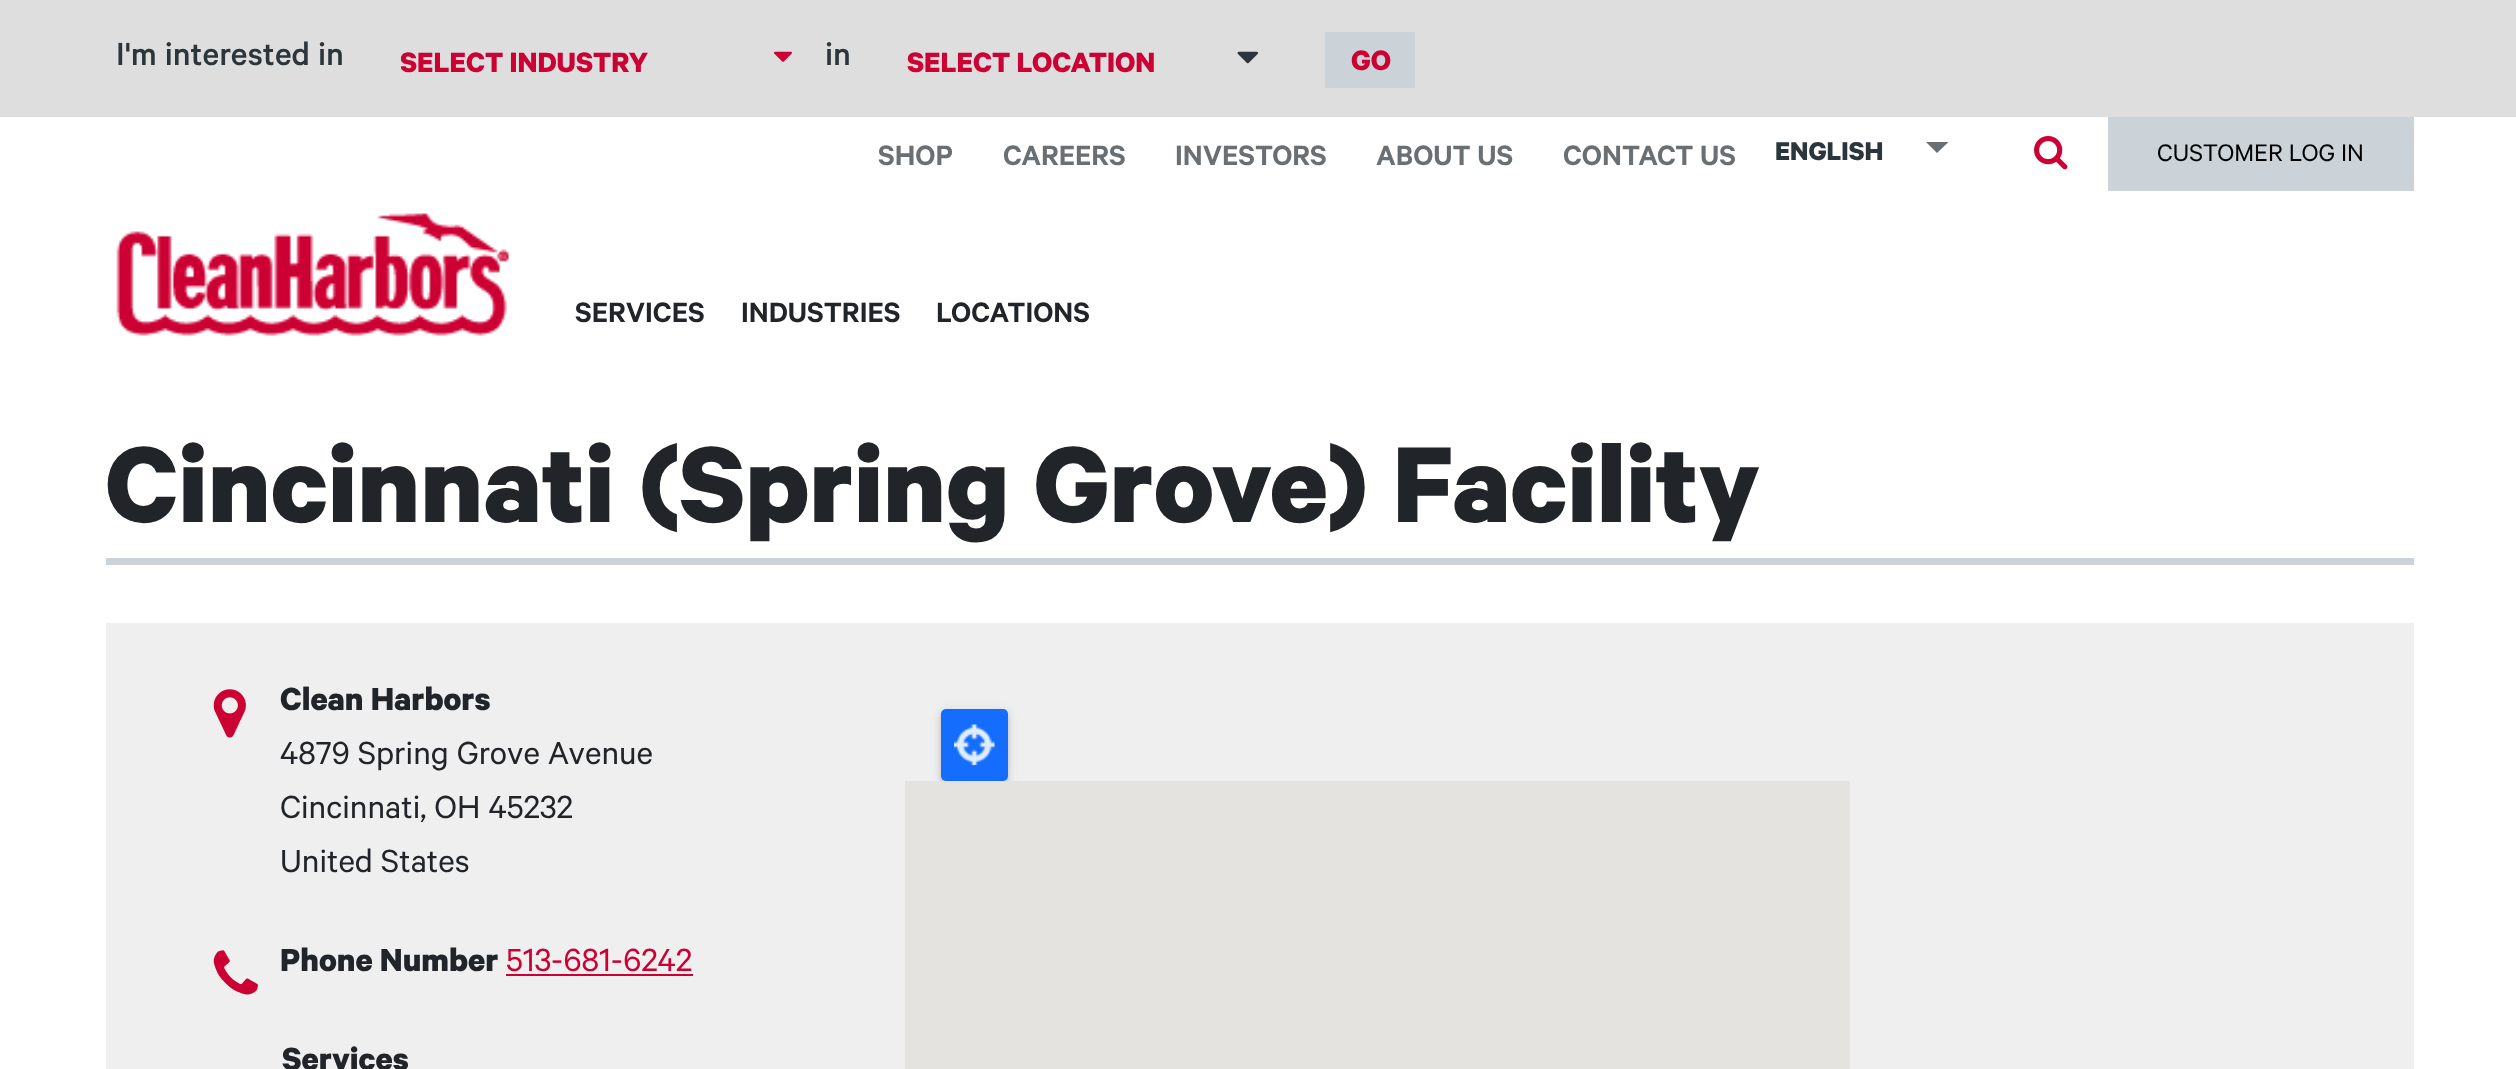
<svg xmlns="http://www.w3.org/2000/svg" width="2516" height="1069">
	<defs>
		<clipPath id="clip1"><rect x="401" y="23" width="346" height="78" /></clipPath>
	</defs>
	<rect width="100%" height="100%" fill="#FFFFFF" />
	<rect x="0" y="0" width="2516" height="117" fill="#DEDEDE" />
	<text x="116" y="65" font-family="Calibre" font-size="36" font-weight="500" fill="#2B363C">I'm interested in</text>
	<g clip-path="url(#clip1)">
		<text x="400" y="72" font-family="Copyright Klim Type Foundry" font-size="31.5" font-weight="700" fill="#CC0033">SELECT INDUSTRY</text>
	</g>
	<image x="774" y="51" width="18" height="11" href="assets/img1.png" />
	<text x="825" y="65" font-family="Calibre" font-size="36" font-weight="500" fill="#2B363C">in</text>
	<text x="907" y="72" font-family="Copyright Klim Type Foundry" font-size="31.5" font-weight="700" fill="#CC0033">SELECT LOCATION</text>
	<image x="1237" y="51" width="21" height="13" href="assets/img2.png" />
	<rect x="1325" y="32" width="90" height="56" fill="#CCD3D8" />
	<text x="1351" y="70" font-family="Copyright Klim Type Foundry" font-size="31.5" font-weight="700" fill="#CC0033">GO</text>
	<g font-family="Calibre" font-size="31.5" font-weight="600" fill="#6A6F73">
		<text x="878" y="165">SHOP</text>
		<text x="1003" y="165">CAREERS</text>
		<text x="1175" y="165">INVESTORS</text>
		<text x="1376" y="165">ABOUT US</text>
		<text x="1563" y="165">CONTACT US</text>
	</g>
	<text x="1775" y="160" font-family="Copyright Klim Type Foundry" font-size="29" font-weight="700" fill="#2B363C">ENGLISH</text>
	<path d="M1926 142H1948.5L1937 153Z" fill="#6A6F73" />
	<image x="2034" y="136" width="34" height="34" href="assets/img3.png" />
	<rect x="2108" y="117" width="306" height="74" fill="#CCD3D8" />
	<text x="2157" y="161" font-family="Copyright Klim Type Foundry" font-size="27" fill="#000000">CUSTOMER LOG IN</text>
	<image x="116" y="213" width="394" height="123" href="assets/img4.png" />
	<g font-family="Calibre" font-size="31.5" font-weight="600" fill="#212529">
		<text x="575" y="322">SERVICES</text>
		<text x="741" y="322">INDUSTRIES</text>
		<text x="936" y="322">LOCATIONS</text>
	</g>
	<text x="105" y="522" font-family="Copyright Klim Type Foundry" font-size="121.5" font-weight="700" fill="#212529">Cincinnati (Spring Grove) Facility</text>
	<rect x="106" y="558" width="2308" height="7" fill="#CCD3D8" />
	<rect x="106" y="623" width="2308" height="446" fill="#EFEFEF" />
	<image x="213" y="689" width="33" height="49" href="assets/img5.png" />
	<text x="280" y="710" font-family="Copyright Klim Type Foundry" font-size="36" font-weight="700" fill="#212529">Clean Harbors</text>
	<g font-family="Copyright Klim Type Foundry" font-size="36" fill="#212529">
		<text x="280" y="764">4879 Spring Grove Avenue</text>
		<text x="280" y="818">Cincinnati, OH 45232</text>
		<text x="280" y="872">United States</text>
	</g>
	<image x="213" y="950" width="45" height="45" href="assets/img6.png" />
	<text x="280" y="971" font-family="Copyright Klim Type Foundry" font-size="36" font-weight="700" fill="#212529">Phone Number</text>
	<text x="506" y="971" font-family="Copyright Klim Type Foundry" font-size="36" fill="#CC0033">513-681-6242</text>
	<rect x="506" y="974" width="187" height="2" fill="#CC0033" />
	<text x="282" y="1070" font-family="Copyright Klim Type Foundry" font-size="36" font-weight="700" fill="#212529">Services</text>
	<rect x="945" y="720" width="59" height="63" fill="#000000" fill-opacity="0.2" filter="blur(1px)" />
	<rect x="941" y="711" width="67" height="72" rx="5" fill="#000000" fill-opacity="0.12" filter="blur(5.5px)" />
	<rect x="941" y="713" width="67" height="72" rx="5" fill="#000000" fill-opacity="0.14" filter="blur(2px)" />
	<rect x="941" y="709" width="67" height="72" rx="5" fill="#156DFE" />
	<image x="954" y="724" width="41" height="41" href="assets/img7.png" />
	<rect x="905" y="781" width="945" height="288" fill="#E5E3DF" />
</svg>
